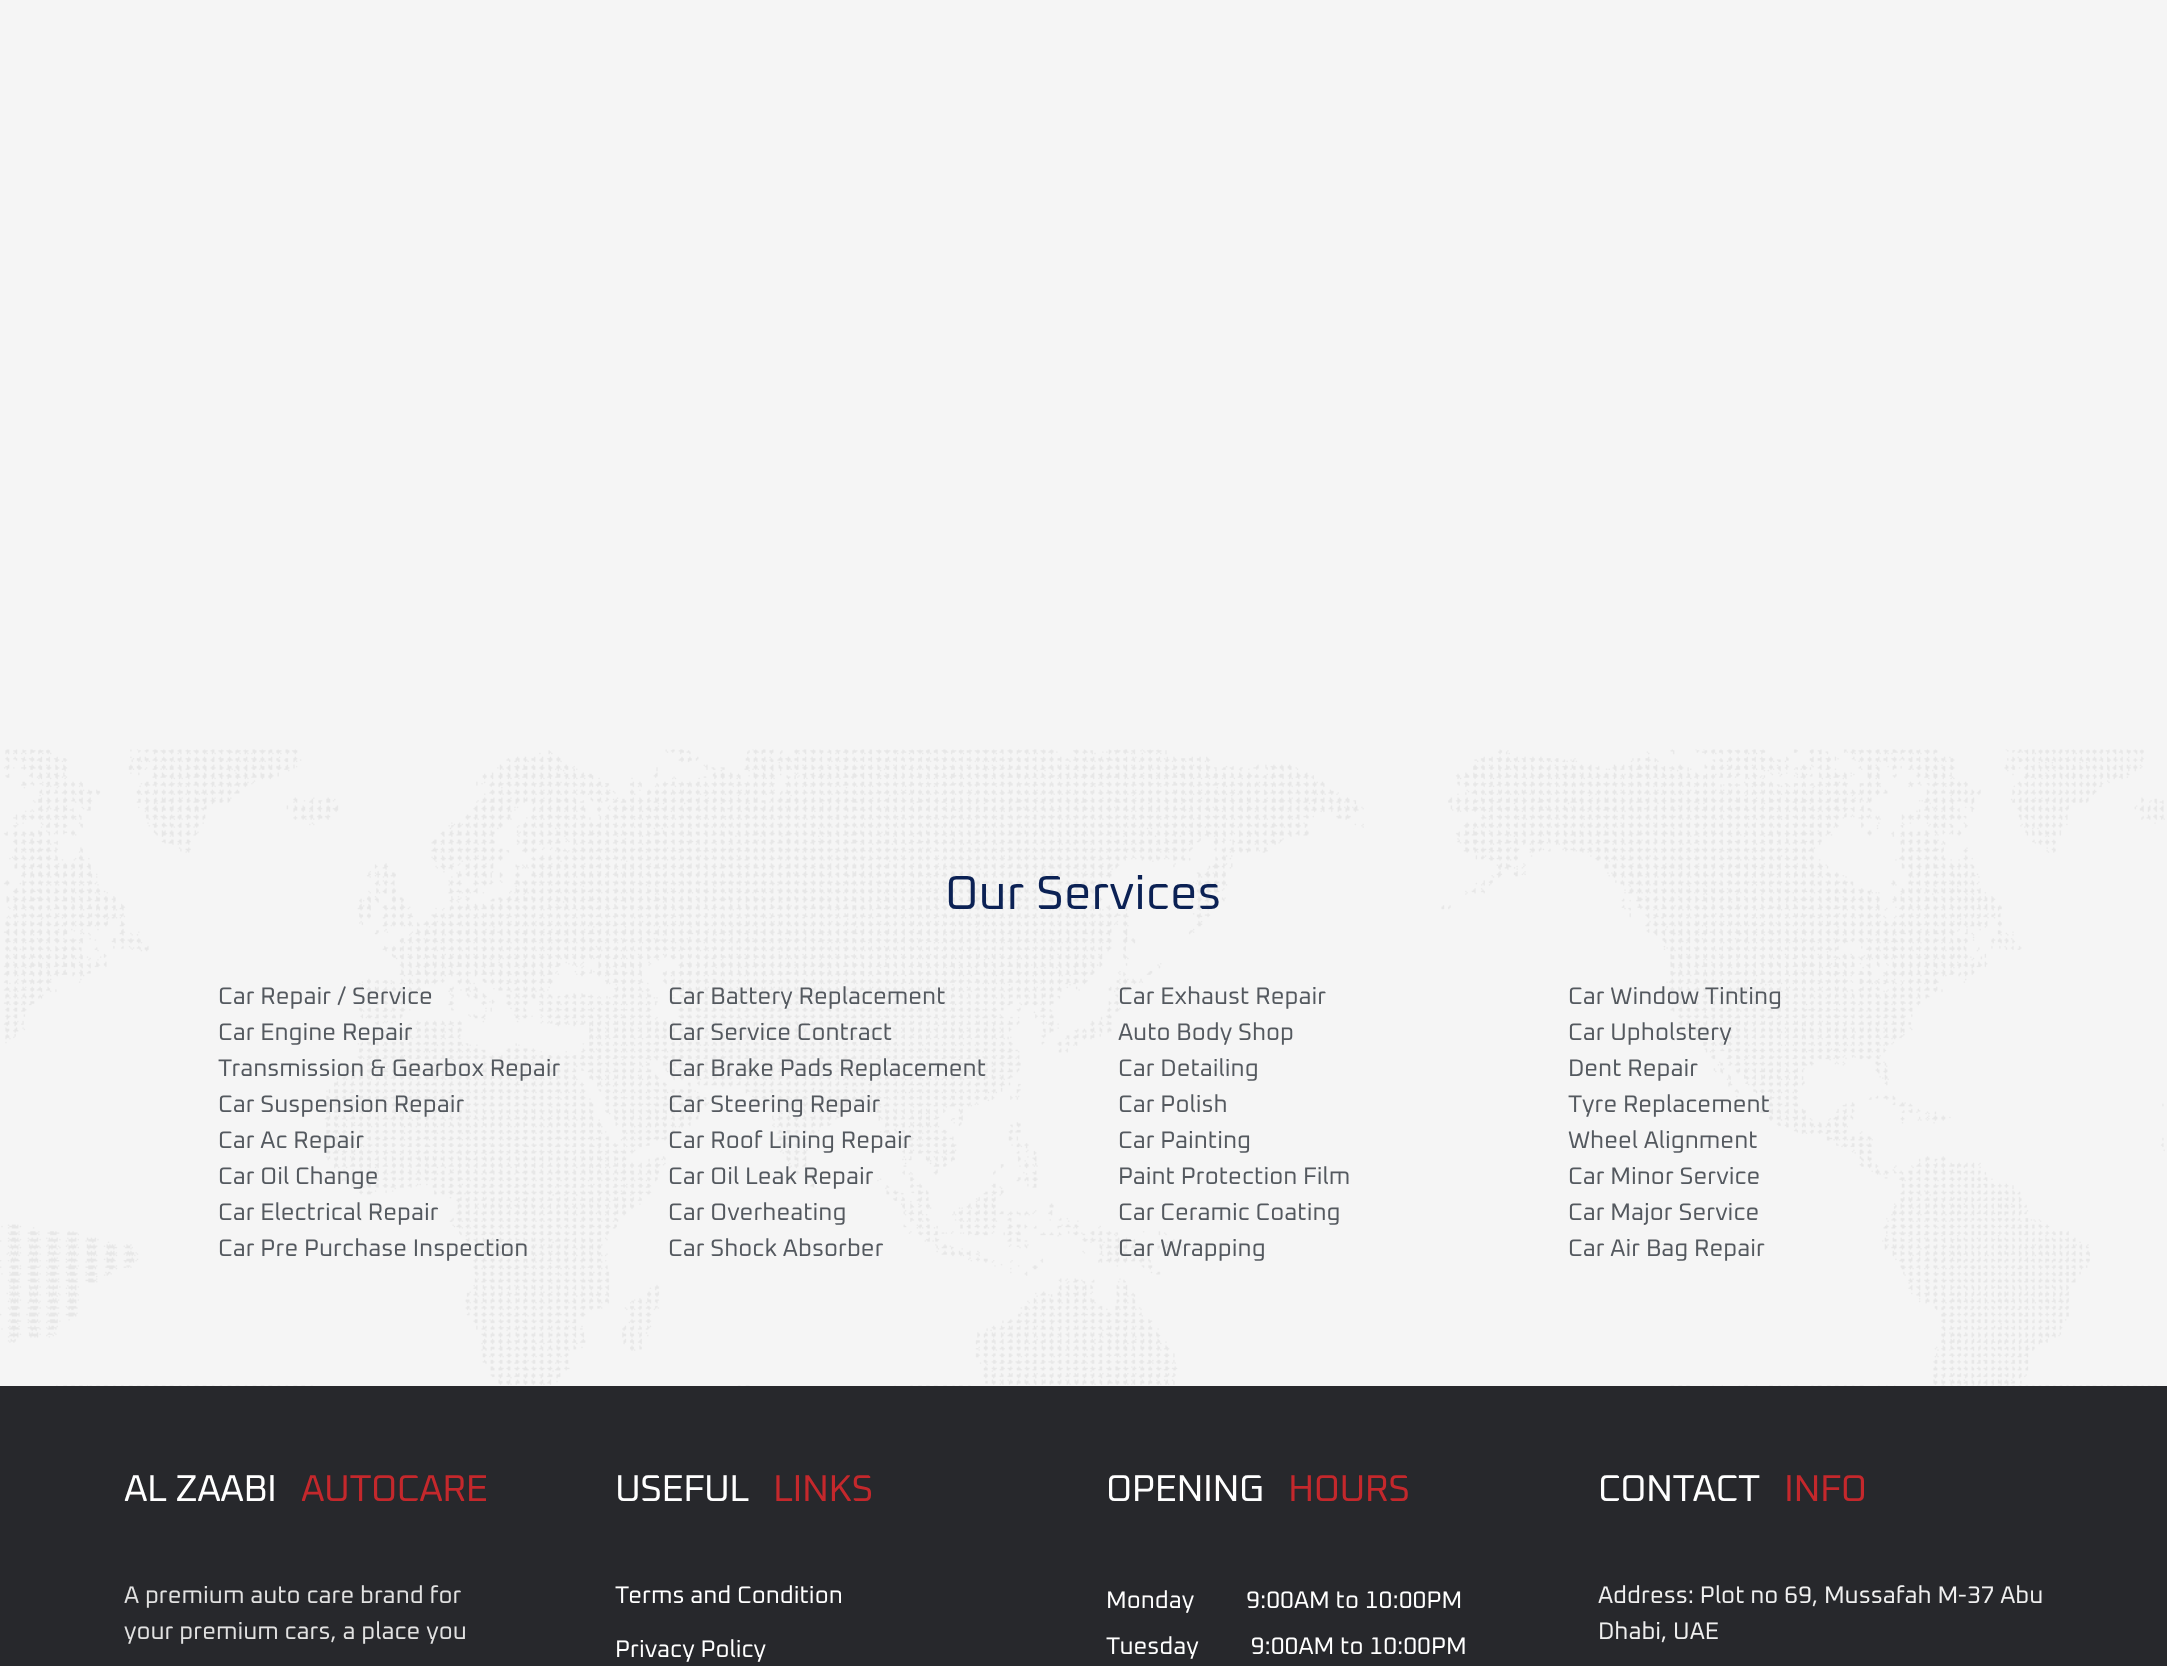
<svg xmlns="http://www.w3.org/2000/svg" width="2167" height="1666">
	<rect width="100%" height="100%" fill="#F5F5F5" />
	<image x="0" y="749" width="2165" height="636" href="assets/img1.png" />
	<text x="945" y="909" font-family="Oxanium" font-size="48" fill="#0B2154">Our Services</text>
	<g font-family="Oxanium" font-size="24" fill="#54595F">
		<text x="218" y="1004">Car Repair / Service</text>
		<text x="218" y="1040">Car Engine Repair</text>
		<text x="218" y="1076">Transmission &amp; Gearbox Repair</text>
		<text x="218" y="1112">Car Suspension Repair</text>
		<text x="218" y="1148">Car Ac Repair</text>
		<text x="218" y="1184">Car Oil Change</text>
		<text x="218" y="1220">Car Electrical Repair</text>
		<text x="218" y="1256">Car Pre Purchase Inspection</text>
		<text x="668" y="1004">Car Battery Replacement</text>
		<text x="668" y="1040">Car Service Contract</text>
		<text x="668" y="1076">Car Brake Pads Replacement</text>
		<text x="668" y="1112">Car Steering Repair</text>
		<text x="668" y="1148">Car Roof Lining Repair</text>
		<text x="668" y="1184">Car Oil Leak Repair</text>
		<text x="668" y="1220">Car Overheating</text>
		<text x="668" y="1256">Car Shock Absorber</text>
		<text x="1118" y="1004">Car Exhaust Repair</text>
		<text x="1118" y="1040">Auto Body Shop</text>
		<text x="1118" y="1076">Car Detailing</text>
		<text x="1118" y="1112">Car Polish</text>
		<text x="1118" y="1148">Car Painting</text>
		<text x="1118" y="1184">Paint Protection Film</text>
		<text x="1118" y="1220">Car Ceramic Coating</text>
		<text x="1118" y="1256">Car Wrapping</text>
		<text x="1568" y="1004">Car Window Tinting</text>
		<text x="1568" y="1040">Car Upholstery</text>
		<text x="1568" y="1076">Dent Repair</text>
		<text x="1568" y="1112">Tyre Replacement</text>
		<text x="1568" y="1148">Wheel Alignment</text>
		<text x="1568" y="1184">Car Minor Service</text>
		<text x="1568" y="1220">Car Major Service</text>
		<text x="1568" y="1256">Car Air Bag Repair</text>
	</g>
	<rect x="0" y="1386" width="2167" height="280" fill="#27282C" />
	<image x="56" y="1385" width="2101" height="1" href="assets/img2.png" />
	<text x="124" y="1501" font-family="Oxanium" font-size="37.5" letter-spacing="-0.5" fill="#FFFFFF">AL ZAABI</text>
	<text x="301" y="1501" font-family="Oxanium" font-size="37.5" letter-spacing="-0.5" fill="#C4282C">AUTOCARE</text>
	<g font-family="Oxanium" font-size="24" fill="#E1E1E1">
		<text x="124" y="1603">A premium auto care brand for</text>
		<text x="124" y="1639">your premium cars, a place you</text>
	</g>
	<text x="615" y="1501" font-family="Oxanium" font-size="37.5" letter-spacing="-0.5" fill="#FFFFFF">USEFUL</text>
	<text x="773" y="1501" font-family="Oxanium" font-size="37.5" letter-spacing="-0.5" fill="#C4282C">LINKS</text>
	<g font-family="Oxanium" font-size="24" fill="#FFFFFF">
		<text x="615" y="1603">Terms and Condition</text>
		<text x="615" y="1657">Privacy Policy</text>
	</g>
	<text x="1106" y="1501" font-family="Oxanium" font-size="37.5" letter-spacing="-0.5" fill="#FFFFFF">OPENING</text>
	<text x="1288" y="1501" font-family="Oxanium" font-size="37.5" letter-spacing="-0.5" fill="#C4282C">HOURS</text>
	<g font-family="Oxanium" font-size="24" fill="#FFFFFF">
		<text x="1106" y="1608" xml:space="preserve">Monday         9:00AM to 10:00PM</text>
		<text x="1106" y="1654" xml:space="preserve">Tuesday         9:00AM to 10:00PM</text>
	</g>
	<text x="1598" y="1501" font-family="Oxanium" font-size="37.5" letter-spacing="-0.5" fill="#FFFFFF">CONTACT</text>
	<text x="1784" y="1501" font-family="Oxanium" font-size="37.5" letter-spacing="-0.5" fill="#C4282C">INFO</text>
	<g font-family="Oxanium" font-size="24" fill="#EFEFEF">
		<text x="1598" y="1603">Address: Plot no 69, Mussafah M-37 Abu</text>
		<text x="1598" y="1639">Dhabi, UAE</text>
	</g>
</svg>
